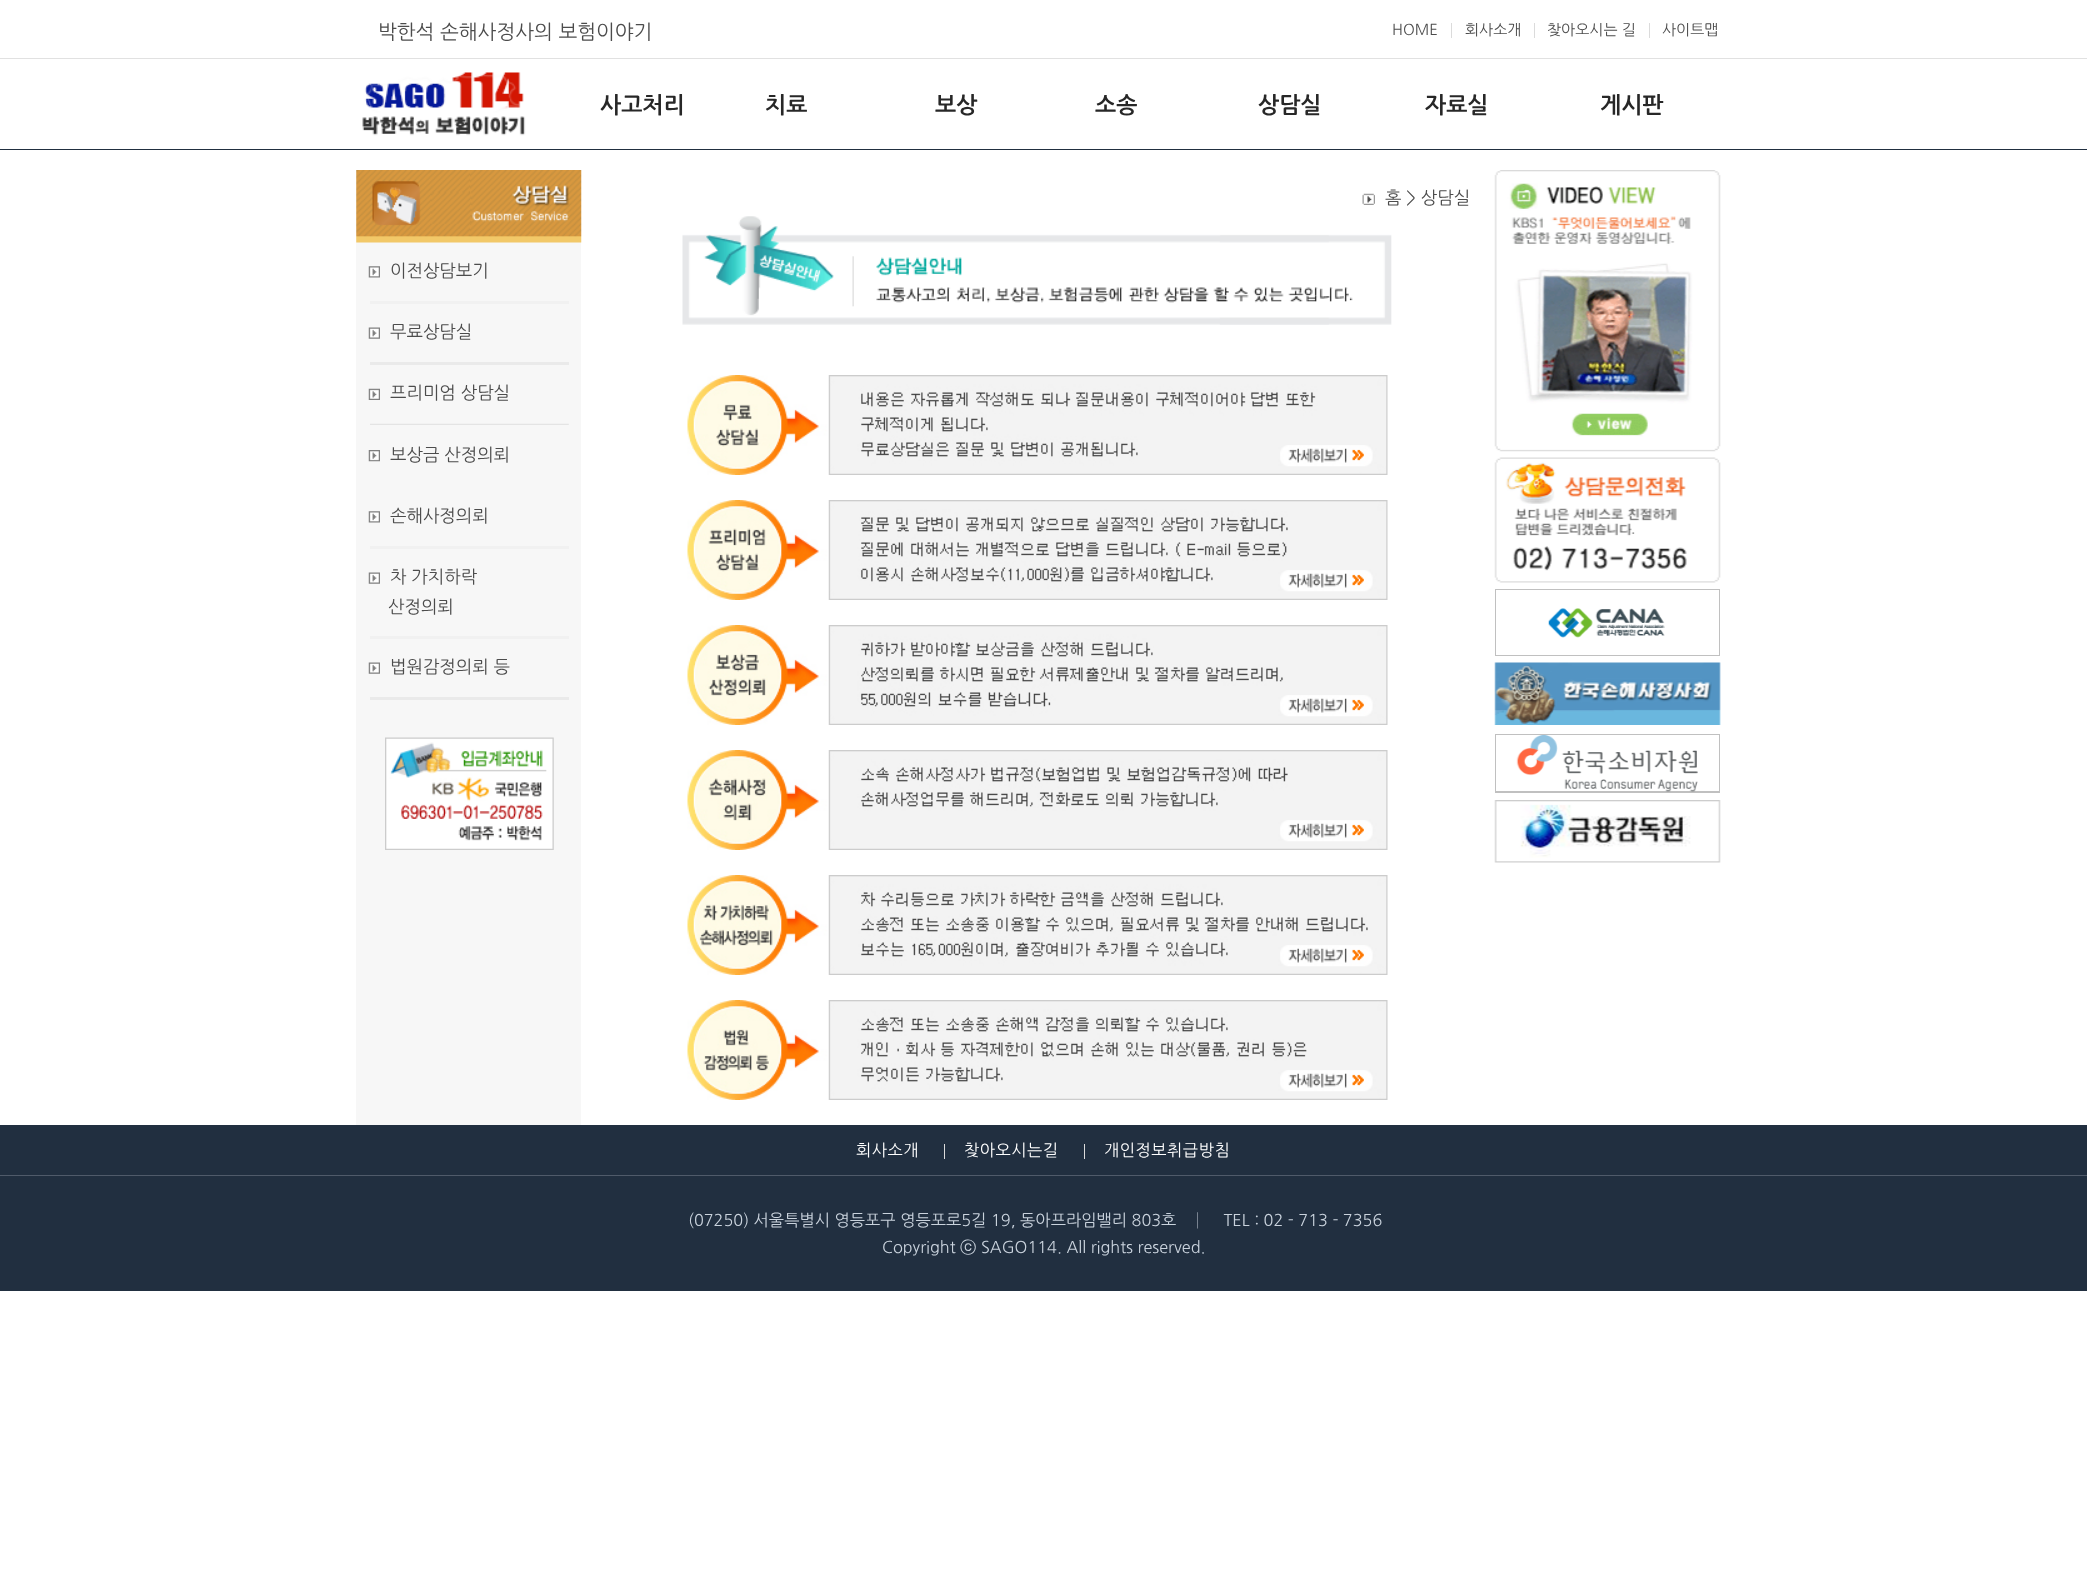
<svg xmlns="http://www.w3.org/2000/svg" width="2087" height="1594">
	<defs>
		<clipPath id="clip1"><rect x="1380" y="23" width="351" height="15" /></clipPath>
	</defs>
	<rect width="100%" height="100%" fill="#FFFFFF" />
	<text x="378" y="39" font-family="NanumGothic" font-size="20" fill="#4C4C4C">박한석 손해사정사의 보험이야기</text>
	<text x="1392" y="35" font-family="NanumGothic" font-size="15" fill="#4C4C4C">HOME</text>
	<rect x="1451" y="23" width="1" height="15" fill="#DBDBDB" />
	<g clip-path="url(#clip1)">
		<text x="1465" y="35" font-family="NanumGothic" font-size="15" fill="#4C4C4C">회사소개</text>
	</g>
	<rect x="1534" y="23" width="1" height="15" fill="#DBDBDB" />
	<g clip-path="url(#clip1)">
		<text x="1547" y="35" font-family="NanumGothic" font-size="15" fill="#4C4C4C">찾아오시는 길</text>
	</g>
	<rect x="1649" y="23" width="1" height="15" fill="#DBDBDB" />
	<g clip-path="url(#clip1)">
		<text x="1662" y="35" font-family="NanumGothic" font-size="15" fill="#4C4C4C">사이트맵</text>
	</g>
	<rect x="0" y="58" width="2087" height="1" fill="#E1E1E1" />
	<rect x="0" y="149" width="2087" height="1" fill="#212F40" />
	<image x="362" y="72" width="164" height="64" href="assets/img1.png" />
	<g font-family="NanumGothic" font-size="22.5" font-weight="700" fill="#272727">
		<text x="600" y="113">사고처리</text>
		<text x="765" y="113">치료</text>
		<text x="935" y="113">보상</text>
		<text x="1095" y="113">소송</text>
		<text x="1258" y="113">상담실</text>
		<text x="1425" y="113">자료실</text>
		<text x="1600" y="113">게시판</text>
	</g>
	<image x="1362" y="193" width="13" height="12" href="assets/img2.png" />
	<text x="1385" y="204" font-family="NanumGothic" font-size="17.5" fill="#4C4C4C">홈 &gt; 상담실</text>
	<image x="682" y="216" width="710" height="109" href="assets/img3.png" />
	<image x="687" y="375" width="701" height="100" href="assets/img4.png" />
	<image x="687" y="500" width="701" height="100" href="assets/img5.png" />
	<image x="687" y="625" width="701" height="100" href="assets/img6.png" />
	<image x="687" y="750" width="701" height="100" href="assets/img7.png" />
	<image x="687" y="875" width="701" height="100" href="assets/img8.png" />
	<image x="687" y="1000" width="701" height="100" href="assets/img9.png" />
	<image x="1494" y="170" width="227" height="282" href="assets/img10.png" />
	<image x="1494" y="457" width="227" height="126" href="assets/img11.png" />
	<rect x="1495" y="589" width="225" height="67" fill="#C0C0C0" />
	<rect x="1496" y="590" width="223" height="65" fill="#FFFFFF" />
	<image x="1548" y="608" width="117" height="30" href="assets/img12.png" />
	<image x="1494" y="662" width="227" height="63" href="assets/img13.png" />
	<rect x="1495" y="734" width="225" height="59" fill="#C0C0C0" />
	<rect x="1496" y="735" width="223" height="56" fill="#FFFFFF" />
	<image x="1516" y="735" width="182" height="57" href="assets/img14.png" />
	<image x="1494" y="800" width="227" height="63" href="assets/img15.png" />
	<rect x="356" y="170" width="225" height="955" fill="#F7F7F7" />
	<image x="356" y="170" width="226" height="73" href="assets/img16.png" />
	<image x="368" y="266" width="12" height="12" href="assets/img17.png" />
	<text x="390" y="277" font-family="NanumGothic" font-size="17.5" fill="#4C4C4C">이전상담보기</text>
	<rect x="370" y="301" width="199" height="3" fill="#F1F1F1" />
	<image x="368" y="327" width="12" height="12" href="assets/img18.png" />
	<text x="390" y="338" font-family="NanumGothic" font-size="17.5" fill="#4C4C4C">무료상담실</text>
	<rect x="370" y="362" width="199" height="3" fill="#EAEAEA" />
	<image x="368" y="388" width="12" height="12" href="assets/img19.png" />
	<text x="390" y="399" font-family="NanumGothic" font-size="17.5" fill="#4C4C4C">프리미엄 상담실</text>
	<image x="370" y="423" width="199" height="2" href="assets/img20.png" />
	<image x="368" y="450" width="12" height="12" href="assets/img21.png" />
	<text x="390" y="461" font-family="NanumGothic" font-size="17.5" fill="#4C4C4C">보상금 산정의뢰</text>
	<image x="368" y="511" width="12" height="12" href="assets/img17.png" />
	<text x="390" y="522" font-family="NanumGothic" font-size="17.5" fill="#4C4C4C">손해사정의뢰</text>
	<rect x="370" y="546" width="199" height="3" fill="#F1F1F1" />
	<image x="368" y="572" width="12" height="12" href="assets/img18.png" />
	<g font-family="NanumGothic" font-size="17.5" fill="#4C4C4C">
		<text x="390" y="583">차 가치하락</text>
		<text x="388" y="613">산정의뢰</text>
	</g>
	<rect x="370" y="636" width="199" height="3" fill="#F1F1F1" />
	<image x="368" y="662" width="12" height="12" href="assets/img18.png" />
	<text x="390" y="673" font-family="NanumGothic" font-size="17.5" fill="#4C4C4C">법원감정의뢰 등</text>
	<rect x="370" y="697" width="199" height="3" fill="#EAEAEA" />
	<image x="385" y="737" width="169" height="113" href="assets/img22.png" />
	<rect x="0" y="1125" width="2087" height="166" fill="#212F40" />
	<rect x="0" y="1175" width="2087" height="1" fill="#505B6A" />
	<text x="856" y="1156" font-family="NanumGothic" font-size="16.25" letter-spacing="0.5" fill="#FFFFFF">회사소개</text>
	<rect x="944" y="1144" width="1" height="15" fill="#DCDCDC" />
	<text x="964" y="1156" font-family="NanumGothic" font-size="16.25" letter-spacing="0.5" fill="#FFFFFF">찾아오시는길</text>
	<rect x="1084" y="1144" width="1" height="15" fill="#DCDCDC" />
	<text x="1104" y="1156" font-family="NanumGothic" font-size="16.25" letter-spacing="0.5" fill="#FFFFFF">개인정보취급방침</text>
	<g font-family="NanumGothic" font-size="16.25" fill="#CAD3DD">
		<text x="688" y="1226" xml:space="preserve">(07250) 서울특별시 영등포구 영등포로5길 19, 동아프라임밸리 803호   │    TEL : 02 - 713 - 7356</text>
		<text x="882" y="1253">Copyright</text>
	</g>
	<text x="960" y="1253" font-family="WenQuanYi Zen Hei" font-size="16.25" font-weight="500" fill="#CAD3DD">ⓒ</text>
	<text x="981" y="1253" font-family="NanumGothic" font-size="16.25" fill="#CAD3DD">SAGO114. All rights reserved.</text>
</svg>
